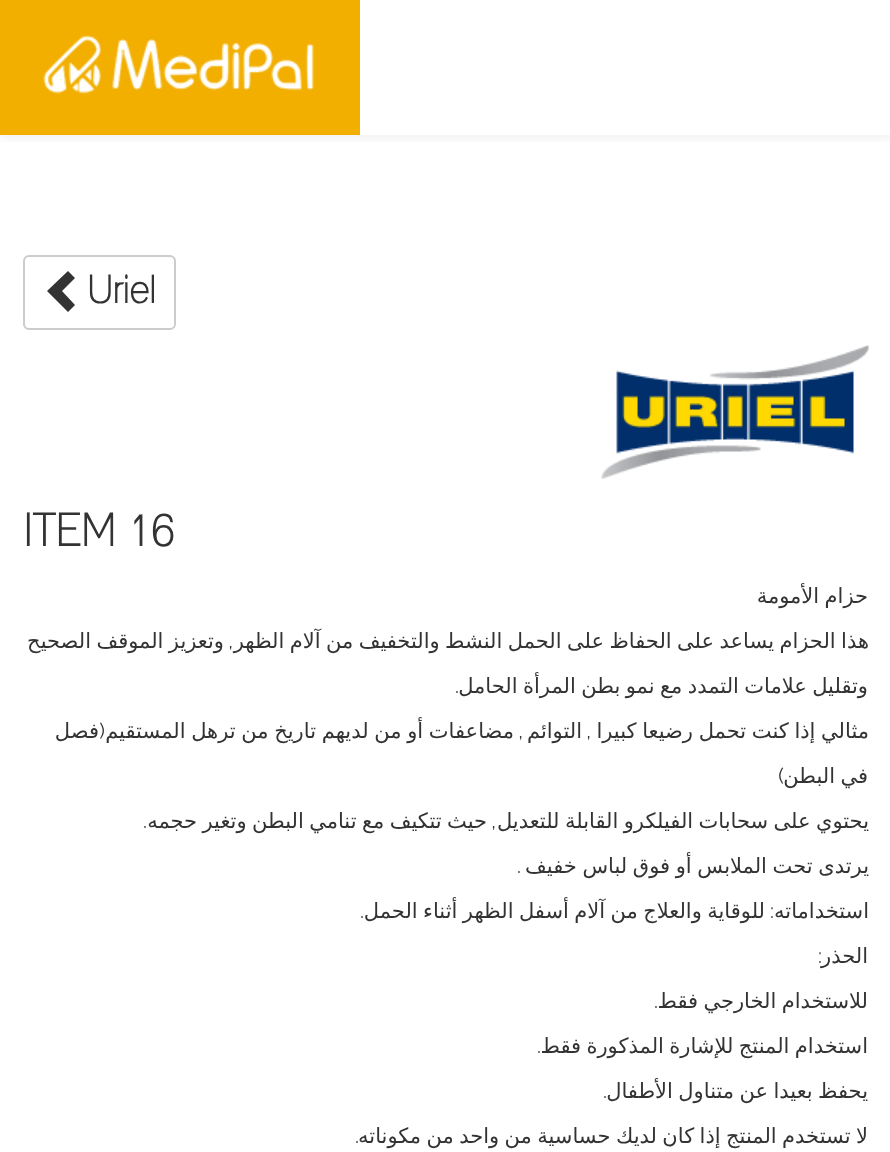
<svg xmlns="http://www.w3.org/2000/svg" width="890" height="1152">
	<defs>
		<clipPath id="clip1"><rect x="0" y="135" width="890" height="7" /></clipPath>
	</defs>
	<rect width="100%" height="100%" fill="#FFFFFF" />
	<g clip-path="url(#clip1)">
		<rect x="0" y="3" width="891" height="135" fill="#323232" fill-opacity="0.08" filter="blur(6px)" />
	</g>
	<rect x="0" y="0" width="360" height="135" fill="#F2AF00" />
	<image x="43" y="35" width="271" height="59" href="assets/img1.png" />
	<rect x="24" y="256" width="151" height="73" rx="5" fill="none" stroke="#CCCCCC" stroke-width="2" />
	<text x="87" y="303" font-family="'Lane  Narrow'" font-size="38" font-weight="700" fill="#333333">Uriel</text>
	<path d="M75 278L62 291L75 305L68 312L47 291L68 271Z" fill="#333333" />
	<image x="601" y="345" width="268" height="134" href="assets/img2.png" />
	<text x="23" y="546" font-family="'Lane  Narrow'" font-size="45" font-weight="700" fill="#333333">ITEM 16</text>
	<text x="868" y="603" word-spacing="-1.25" font-family="DejaVu Sans" font-size="21" direction="rtl" fill="#333333">حزام الأمومة</text>
	<text x="233" y="648" font-family="Raleway" font-size="21" direction="rtl" fill="#333333">,</text>
	<g font-family="DejaVu Sans" font-size="21" direction="rtl" fill="#333333">
		<text x="869" y="648" word-spacing="-1.25">هذا الحزام يساعد على الحفاظ على الحمل النشط والتخفيف من آلام الظهر</text>
		<text x="224" y="648" word-spacing="-1.25">وتعزيز الموقف الصحيح</text>
		<text x="868" y="693" word-spacing="-1.25">وتقليل علامات التمدد مع نمو بطن المرأة الحامل</text>
	</g>
	<text x="459" y="693" font-family="Raleway" font-size="21" direction="rtl" fill="#333333">.</text>
	<text x="869" y="738" word-spacing="-1" font-family="DejaVu Sans" font-size="21" direction="rtl" fill="#333333">مثالي إذا كنت تحمل رضيعا كبيرا</text>
	<text x="591" y="738" font-family="Raleway" font-size="21" direction="rtl" fill="#333333">,</text>
	<g font-family="DejaVu Sans" font-size="21" direction="rtl" fill="#333333">
		<text x="582" y="738">التوائم</text>
		<text x="514" y="738" word-spacing="-1">مضاعفات أو من لديهم تاريخ من ترهل المستقيم</text>
	</g>
	<g font-family="Raleway" font-size="21" direction="rtl" fill="#333333">
		<text x="523" y="738">,</text>
		<text x="105" y="738">(</text>
	</g>
	<g font-family="DejaVu Sans" font-size="21" direction="rtl" fill="#333333">
		<text x="99" y="738">فصل</text>
		<text x="868" y="783" word-spacing="-1.25">في البطن</text>
	</g>
	<text x="784" y="783" font-family="Raleway" font-size="21" direction="rtl" fill="#333333">)</text>
	<g font-family="DejaVu Sans" font-size="21" direction="rtl" fill="#333333">
		<text x="869" y="828" word-spacing="-1.25">يحتوي على سحابات الفيلكرو القابلة للتعديل</text>
		<text x="487" y="828" word-spacing="-1.25">حيث تتكيف مع تنامي البطن وتغير حجمه</text>
	</g>
	<g font-family="Raleway" font-size="21" direction="rtl" fill="#333333">
		<text x="147" y="828">.</text>
		<text x="496" y="828">,</text>
	</g>
	<text x="869" y="873" word-spacing="-1" font-family="DejaVu Sans" font-size="21" direction="rtl" fill="#333333">يرتدى تحت الملابس أو فوق لباس خفيف</text>
	<text x="521" y="873" font-family="Raleway" font-size="21" direction="rtl" fill="#333333">.</text>
	<g font-family="DejaVu Sans" font-size="21" direction="rtl" fill="#333333">
		<text x="869" y="918">استخداماته</text>
		<text x="765" y="918" word-spacing="-1.25">للوقاية والعلاج من آلام أسفل الظهر أثناء الحمل</text>
	</g>
	<g font-family="Raleway" font-size="21" direction="rtl" fill="#333333">
		<text x="774" y="918">:</text>
		<text x="364" y="918">.</text>
		<text x="822" y="963">:</text>
	</g>
	<g font-family="DejaVu Sans" font-size="21" direction="rtl" fill="#333333">
		<text x="868" y="963">الحذر</text>
		<text x="868" y="1008" word-spacing="-1.25">للاستخدام الخارجي فقط</text>
	</g>
	<text x="658" y="1008" font-family="Raleway" font-size="21" direction="rtl" fill="#333333">.</text>
	<text x="868" y="1053" word-spacing="-1.25" font-family="DejaVu Sans" font-size="21" direction="rtl" fill="#333333">استخدام المنتج للإشارة المذكورة فقط</text>
	<text x="541" y="1053" font-family="Raleway" font-size="21" direction="rtl" fill="#333333">.</text>
	<text x="868" y="1098" word-spacing="-1.25" font-family="DejaVu Sans" font-size="21" direction="rtl" fill="#333333">يحفظ بعيدا عن متناول الأطفال</text>
	<text x="607" y="1098" font-family="Raleway" font-size="21" direction="rtl" fill="#333333">.</text>
	<text x="868" y="1143" word-spacing="-1.25" font-family="DejaVu Sans" font-size="21" direction="rtl" fill="#333333">لا تستخدم المنتج إذا كان لديك حساسية من واحد من مكوناته</text>
	<text x="359" y="1143" font-family="Raleway" font-size="21" direction="rtl" fill="#333333">.</text>
</svg>
